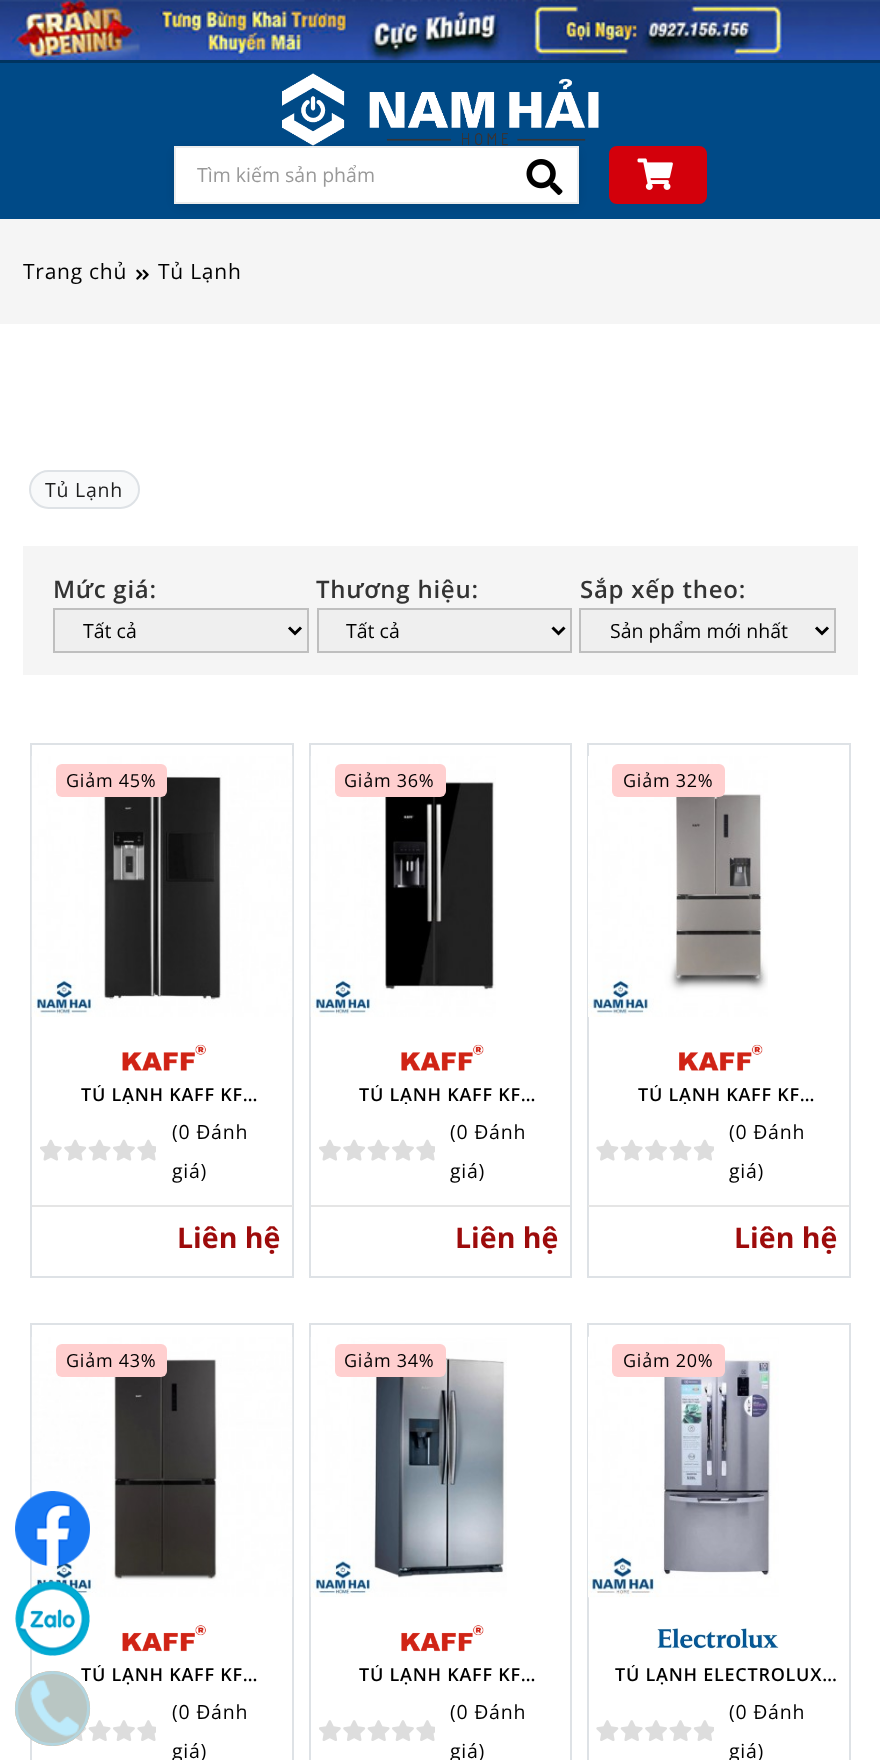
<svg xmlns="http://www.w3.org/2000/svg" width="880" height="1760">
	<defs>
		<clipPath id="clip1"><rect x="39" y="1085" width="246" height="19" /></clipPath>
		<clipPath id="clip2"><rect x="318" y="1085" width="245" height="19" /></clipPath>
		<clipPath id="clip3"><rect x="596" y="1085" width="246" height="19" /></clipPath>
		<clipPath id="clip4"><rect x="39" y="1665" width="246" height="20" /></clipPath>
		<clipPath id="clip5"><rect x="318" y="1665" width="245" height="20" /></clipPath>
		<clipPath id="clip6"><rect x="596" y="1665" width="246" height="20" /></clipPath>
	</defs>
	<rect width="100%" height="100%" fill="#FFFFFF" />
	<rect x="0" y="60" width="880" height="3" fill="#00345F" />
	<image x="0" y="0" width="880" height="60" href="assets/img1.png" />
	<rect x="0" y="63" width="880" height="156" fill="#004A87" />
	<image x="282" y="73" width="317" height="73" href="assets/img2.png" />
	<rect x="0" y="219" width="880" height="105" fill="#F5F5F5" />
	<rect x="174" y="149" width="405" height="58" rx="8" fill="#000000" fill-opacity="0.1" filter="blur(4px)" />
	<rect x="175" y="147" width="403" height="56" fill="#FFFFFF" stroke="#EDEDED" stroke-width="2" />
	<text x="197" y="182" font-family="Open Sans" font-size="19.5" fill="#999999">Tìm kiếm sản phẩm</text>
	<image x="526" y="159" width="37" height="36" href="assets/img3.png" />
	<rect x="610" y="147" width="96" height="56" rx="7" fill="#D3000B" stroke="#D3000B" stroke-width="2" />
	<image x="637" y="158" width="36" height="32" href="assets/img4.png" />
	<text x="23" y="279" font-family="Open Sans" font-size="21" letter-spacing="0.75" fill="#000000">Trang chủ</text>
	<image x="136" y="269" width="13" height="11" href="assets/img5.png" />
	<text x="158" y="279" font-family="Open Sans" font-size="21" letter-spacing="0.75" fill="#000000">Tủ Lạnh</text>
	<rect x="30" y="471" width="109" height="37" rx="18.5" fill="#F8F9FA" stroke="#DEE2E6" stroke-width="2" />
	<text x="45" y="497" font-family="Open Sans" font-size="19.5" letter-spacing="0.75" fill="#1E1E1E">Tủ Lạnh</text>
	<rect x="23" y="546" width="835" height="129" fill="#F5F5F5" />
	<text x="53" y="598" font-family="Open Sans" font-size="24" font-weight="600" letter-spacing="0.75" fill="#333333">Mức giá:</text>
	<rect x="54" y="609" width="254" height="43" fill="#EFEFEF" stroke="#BFBFBF" stroke-width="2" />
	<path d="M289 627.5L295 633.5L301 627.5" fill="none" stroke="#000000" stroke-width="3" />
	<text x="83" y="638" font-family="Open Sans" font-size="19.5" fill="#000000">Tất cả</text>
	<text x="316" y="598" font-family="Open Sans" font-size="24" font-weight="600" letter-spacing="0.75" fill="#333333">Thương hiệu:</text>
	<rect x="318" y="609" width="253" height="43" fill="#EFEFEF" stroke="#BFBFBF" stroke-width="2" />
	<path d="M552.5 627.5L558.5 633.5L564.5 627.5" fill="none" stroke="#000000" stroke-width="3" />
	<text x="346" y="638" font-family="Open Sans" font-size="19.5" fill="#000000">Tất cả</text>
	<text x="580" y="598" font-family="Open Sans" font-size="24" font-weight="600" letter-spacing="0.75" fill="#333333">Sắp xếp theo:</text>
	<rect x="580" y="609" width="255" height="43" fill="#EFEFEF" stroke="#BFBFBF" stroke-width="2" />
	<path d="M816 627.5L822 633.5L828 627.5" fill="none" stroke="#000000" stroke-width="3" />
	<text x="610" y="638" font-family="Open Sans" font-size="19.5" fill="#000000">Sản phẩm mới nhất</text>
	<rect x="31" y="744" width="262" height="533" fill="none" stroke="#DEE2E6" stroke-width="2" />
	<image x="31" y="756" width="262" height="261" href="assets/img6.png" />
	<rect x="56" y="764" width="111" height="33" rx="6" fill="#FFCFCF" />
	<text x="66" y="787" font-family="Open Sans" font-size="18" letter-spacing="0.75" fill="#000000">Giảm 45%</text>
	<image x="122" y="1044" width="84" height="27" href="assets/img7.png" />
	<g clip-path="url(#clip1)">
		<text x="81" y="1101" font-family="Open Sans" font-size="18" font-weight="600" letter-spacing="0.75" fill="#000000">TỦ LẠNH KAFF KF…</text>
	</g>
	<image x="40" y="1139" width="116" height="22" href="assets/img8.png" />
	<g font-family="Open Sans" font-size="19.5" letter-spacing="0.75" fill="#000000">
		<text x="172" y="1139">(0 Đánh</text>
		<text x="172" y="1178">giá)</text>
	</g>
	<rect x="32" y="1205" width="261" height="2" fill="#E5E5E5" />
	<text x="177" y="1248" font-family="Open Sans" font-size="28.5" font-weight="700" fill="#9D0B0B">Liên hệ</text>
	<rect x="310" y="744" width="261" height="533" fill="none" stroke="#DEE2E6" stroke-width="2" />
	<image x="310" y="756" width="186" height="261" href="assets/img9.png" />
	<rect x="335" y="764" width="111" height="33" rx="6" fill="#FFCFCF" />
	<text x="344" y="787" font-family="Open Sans" font-size="18" letter-spacing="0.75" fill="#000000">Giảm 36%</text>
	<image x="401" y="1044" width="83" height="27" href="assets/img10.png" />
	<g clip-path="url(#clip2)">
		<text x="359" y="1101" font-family="Open Sans" font-size="18" font-weight="600" letter-spacing="0.75" fill="#000000">TỦ LẠNH KAFF KF…</text>
	</g>
	<image x="319" y="1139" width="116" height="22" href="assets/img8.png" />
	<g font-family="Open Sans" font-size="19.5" letter-spacing="0.75" fill="#000000">
		<text x="450" y="1139">(0 Đánh</text>
		<text x="450" y="1178">giá)</text>
	</g>
	<rect x="311" y="1205" width="259" height="2" fill="#E5E5E5" />
	<text x="455" y="1248" font-family="Open Sans" font-size="28.5" font-weight="700" fill="#9D0B0B">Liên hệ</text>
	<rect x="588" y="744" width="262" height="533" fill="none" stroke="#DEE2E6" stroke-width="2" />
	<image x="588" y="756" width="180" height="261" href="assets/img11.png" />
	<rect x="612" y="764" width="113" height="33" rx="6" fill="#FFCFCF" />
	<text x="623" y="787" font-family="Open Sans" font-size="18" letter-spacing="0.75" fill="#000000">Giảm 32%</text>
	<image x="679" y="1044" width="84" height="27" href="assets/img12.png" />
	<g clip-path="url(#clip3)">
		<text x="638" y="1101" font-family="Open Sans" font-size="18" font-weight="600" letter-spacing="0.75" fill="#000000">TỦ LẠNH KAFF KF…</text>
	</g>
	<image x="596" y="1139" width="118" height="22" href="assets/img13.png" />
	<g font-family="Open Sans" font-size="19.5" letter-spacing="0.75" fill="#000000">
		<text x="729" y="1139">(0 Đánh</text>
		<text x="729" y="1178">giá)</text>
	</g>
	<rect x="588" y="1205" width="261" height="2" fill="#E5E5E5" />
	<text x="734" y="1248" font-family="Open Sans" font-size="28.5" font-weight="700" fill="#9D0B0B">Liên hệ</text>
	<rect x="31" y="1324" width="262" height="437" fill="none" stroke="#DEE2E6" stroke-width="2" />
	<image x="31" y="1337" width="262" height="260" href="assets/img14.png" />
	<rect x="56" y="1344" width="111" height="33" rx="6" fill="#FFCFCF" />
	<text x="66" y="1367" font-family="Open Sans" font-size="18" letter-spacing="0.75" fill="#000000">Giảm 43%</text>
	<image x="122" y="1625" width="84" height="27" href="assets/img15.png" />
	<g clip-path="url(#clip4)">
		<text x="81" y="1681" font-family="Open Sans" font-size="18" font-weight="600" letter-spacing="0.75" fill="#000000">TỦ LẠNH KAFF KF…</text>
	</g>
	<image x="71" y="1720" width="85" height="21" href="assets/img16.png" />
	<g font-family="Open Sans" font-size="19.5" letter-spacing="0.75" fill="#000000">
		<text x="172" y="1719">(0 Đánh</text>
		<text x="172" y="1758">giá)</text>
	</g>
	<rect x="310" y="1324" width="261" height="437" fill="none" stroke="#DEE2E6" stroke-width="2" />
	<image x="310" y="1337" width="197" height="260" href="assets/img17.png" />
	<rect x="335" y="1344" width="111" height="33" rx="6" fill="#FFCFCF" />
	<text x="344" y="1367" font-family="Open Sans" font-size="18" letter-spacing="0.75" fill="#000000">Giảm 34%</text>
	<image x="401" y="1625" width="83" height="27" href="assets/img18.png" />
	<g clip-path="url(#clip5)">
		<text x="359" y="1681" font-family="Open Sans" font-size="18" font-weight="600" letter-spacing="0.75" fill="#000000">TỦ LẠNH KAFF KF…</text>
	</g>
	<image x="319" y="1720" width="116" height="21" href="assets/img19.png" />
	<g font-family="Open Sans" font-size="19.5" letter-spacing="0.75" fill="#000000">
		<text x="450" y="1719">(0 Đánh</text>
		<text x="450" y="1758">giá)</text>
	</g>
	<rect x="588" y="1324" width="262" height="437" fill="none" stroke="#DEE2E6" stroke-width="2" />
	<image x="588" y="1336" width="191" height="262" href="assets/img20.png" />
	<rect x="612" y="1344" width="113" height="33" rx="6" fill="#FFCFCF" />
	<text x="623" y="1367" font-family="Open Sans" font-size="18" letter-spacing="0.75" fill="#000000">Giảm 20%</text>
	<image x="657" y="1628" width="122" height="21" href="assets/img21.png" />
	<g clip-path="url(#clip6)">
		<text x="615" y="1681" font-family="Open Sans" font-size="18" font-weight="600" letter-spacing="0.75" fill="#000000">TỦ LẠNH ELECTROLUX…</text>
	</g>
	<image x="596" y="1720" width="118" height="21" href="assets/img22.png" />
	<g font-family="Open Sans" font-size="19.5" letter-spacing="0.75" fill="#000000">
		<text x="729" y="1719">(0 Đánh</text>
		<text x="729" y="1758">giá)</text>
	</g>
	<image x="15" y="1491" width="75" height="75" href="assets/img23.png" />
	<image x="15" y="1581" width="75" height="75" href="assets/img24.png" />
	<circle cx="52.5" cy="1708.5" r="37.5" fill="#F46F20" />
	<image x="30" y="1679" width="49" height="58" href="assets/img25.png" />
	<circle cx="52.5" cy="1708.5" r="36" fill="none" stroke="#BFEBFC" stroke-opacity="0.5" stroke-width="3" />
	<circle cx="52.5" cy="1708.5" r="37.5" fill="#A6E3FA" fill-opacity="0.75" />
</svg>
